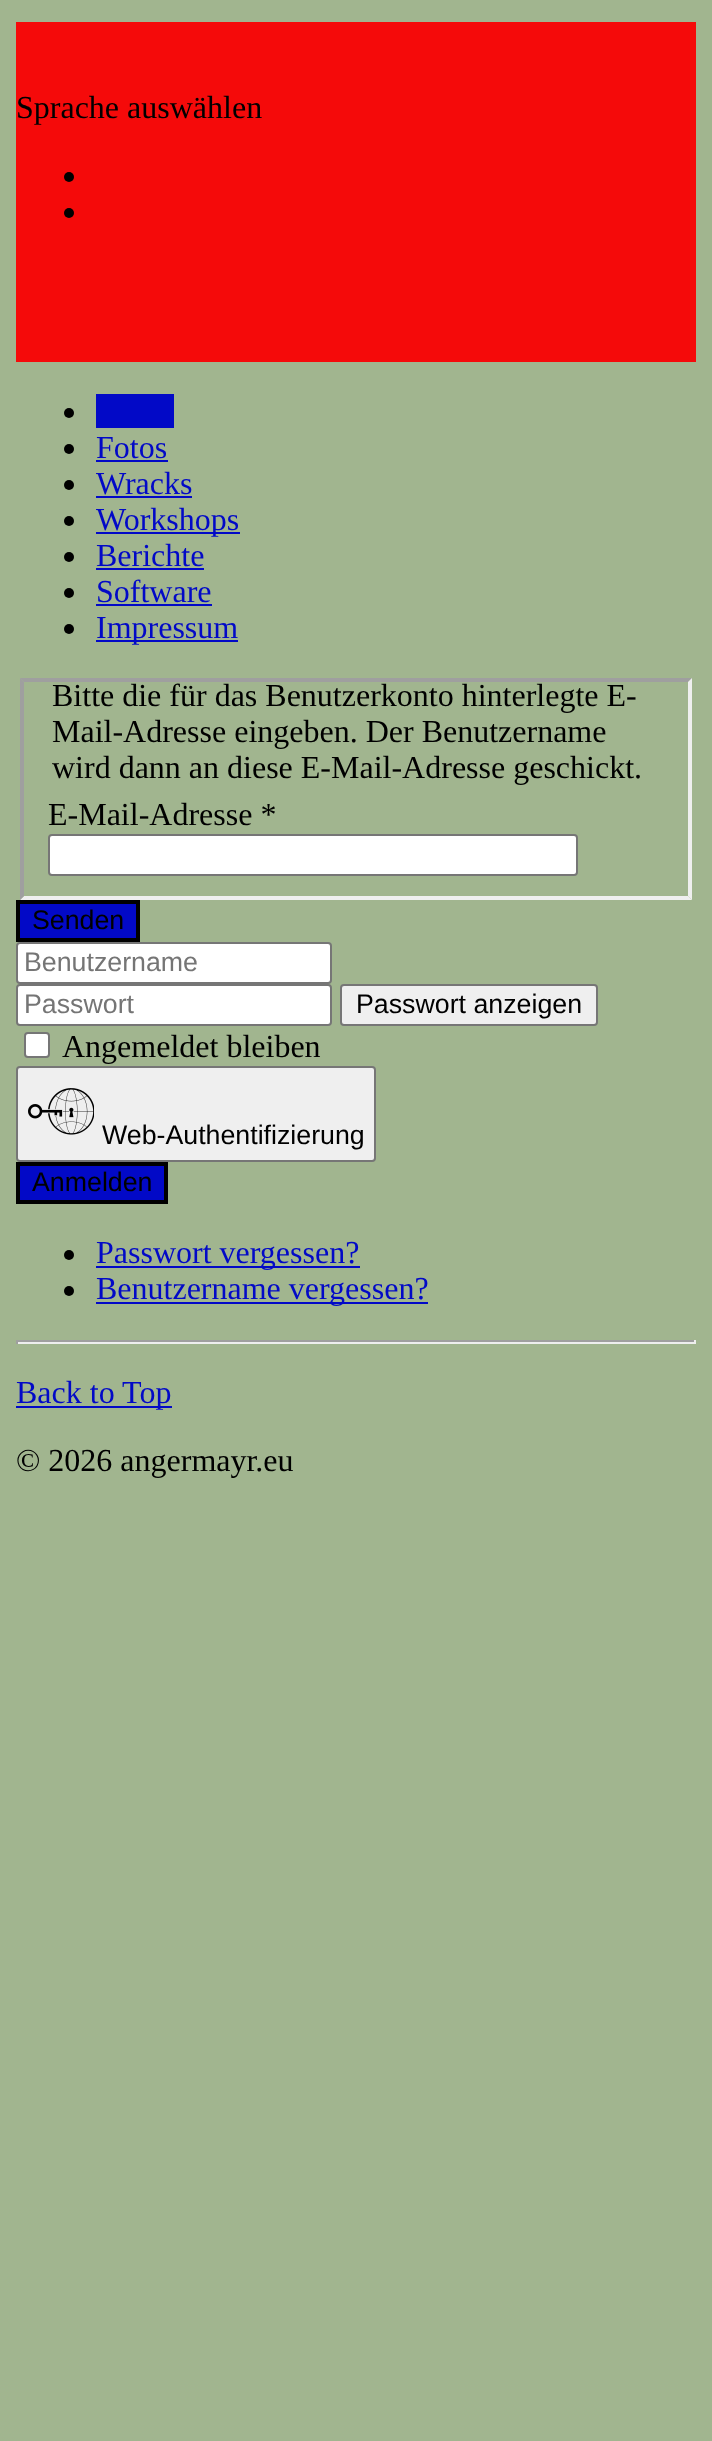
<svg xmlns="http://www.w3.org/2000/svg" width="712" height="2441">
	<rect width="100%" height="100%" fill="#A1B58F" />
	<rect x="16" y="22" width="680" height="340" fill="#F50A0A" />
	<text x="16" y="118" font-family="Liberation Serif" font-size="32" fill="#000000">Sprache auswählen</text>
	<circle cx="69" cy="177" r="5" fill="#000000" />
	<circle cx="69" cy="213" r="5" fill="#000000" />
	<circle cx="69" cy="413" r="5" fill="#000000" />
	<rect x="96" y="394" width="78" height="34" fill="#0209C7" />
	<circle cx="69" cy="449" r="5" fill="#000000" />
	<text x="96" y="458" font-family="Liberation Serif" font-size="32" fill="#0209C7">Fotos</text>
	<rect x="96" y="460" width="72" height="2" fill="#0209C7" />
	<circle cx="69" cy="485" r="5" fill="#000000" />
	<text x="96" y="494" font-family="Liberation Serif" font-size="32" fill="#0209C7">Wracks</text>
	<rect x="96" y="496" width="96" height="2" fill="#0209C7" />
	<circle cx="69" cy="521" r="5" fill="#000000" />
	<rect x="96" y="532" width="144" height="2" fill="#0209C7" />
	<text x="96" y="530" font-family="Liberation Serif" font-size="32" fill="#0209C7">Workshops</text>
	<circle cx="69" cy="557" r="5" fill="#000000" />
	<text x="96" y="566" font-family="Liberation Serif" font-size="32" fill="#0209C7">Berichte</text>
	<rect x="96" y="568" width="108" height="2" fill="#0209C7" />
	<circle cx="69" cy="593" r="5" fill="#000000" />
	<text x="96" y="602" font-family="Liberation Serif" font-size="32" fill="#0209C7">Software</text>
	<rect x="96" y="604" width="116" height="2" fill="#0209C7" />
	<circle cx="69" cy="629" r="5" fill="#000000" />
	<rect x="96" y="640" width="142" height="2" fill="#0209C7" />
	<text x="96" y="638" font-family="Liberation Serif" font-size="32" fill="#0209C7">Impressum</text>
	<path d="M20 678H692L688 682H24Z" fill="#9F9F9F" />
	<path d="M692 678V900L688 896V682Z" fill="#EFEFEF" />
	<path d="M692 900H20L24 896H688Z" fill="#EFEFEF" />
	<path d="M20 900V678L24 682V896Z" fill="#9F9F9F" />
	<g font-family="Liberation Serif" font-size="32" fill="#000000">
		<text x="52" y="706">Bitte die für das Benutzerkonto hinterlegte E-</text>
		<text x="52" y="742">Mail-Adresse eingeben. Der Benutzername</text>
		<text x="52" y="778">wird dann an diese E-Mail-Adresse geschickt.</text>
		<text x="48" y="825">E-Mail-Adresse *</text>
	</g>
	<rect x="49" y="835" width="528" height="40" rx="3" fill="#FFFFFF" stroke="#767676" stroke-width="2" />
	<rect x="18" y="902" width="120" height="38" fill="#0209C7" stroke="#000000" stroke-width="4" />
	<text x="32" y="929" font-family="Liberation Sans" font-size="26.75" fill="#000000">Senden</text>
	<rect x="17" y="943" width="314" height="40" rx="3" fill="#FFFFFF" stroke="#767676" stroke-width="2" />
	<text x="24" y="971" font-family="Liberation Sans" font-size="26.75" fill="#757575">Benutzername</text>
	<rect x="17" y="985" width="314" height="40" rx="3" fill="#FFFFFF" stroke="#767676" stroke-width="2" />
	<text x="24" y="1013" font-family="Liberation Sans" font-size="26.75" fill="#757575">Passwort</text>
	<rect x="341" y="985" width="256" height="40" rx="3" fill="#EFEFEF" stroke="#767676" stroke-width="2" />
	<text x="356" y="1013" font-family="Liberation Sans" font-size="26.75" fill="#000000">Passwort anzeigen</text>
	<rect x="25" y="1033" width="24" height="24" rx="3" fill="#FFFFFF" stroke="#767676" stroke-width="2" />
	<text x="62" y="1057" font-family="Liberation Serif" font-size="32" fill="#000000">Angemeldet bleiben</text>
	<rect x="17" y="1067" width="358" height="94" rx="3" fill="#EFEFEF" stroke="#767676" stroke-width="2" />
	<image x="28" y="1088" width="66" height="47" href="assets/img1.png" />
	<text x="102" y="1144" font-family="Liberation Sans" font-size="26.75" fill="#000000">Web-Authentifizierung</text>
	<rect x="18" y="1164" width="148" height="38" fill="#0209C7" stroke="#000000" stroke-width="4" />
	<text x="32" y="1191" font-family="Liberation Sans" font-size="26.75" fill="#000000">Anmelden</text>
	<circle cx="69" cy="1255" r="5" fill="#000000" />
	<rect x="96" y="1266" width="264" height="2" fill="#0209C7" />
	<text x="96" y="1263" font-family="Liberation Serif" font-size="32" fill="#0209C7">Passwort vergessen?</text>
	<circle cx="69" cy="1291" r="5" fill="#000000" />
	<rect x="96" y="1302" width="332" height="2" fill="#0209C7" />
	<text x="96" y="1299" font-family="Liberation Serif" font-size="32" fill="#0209C7">Benutzername vergessen?</text>
	<rect x="16" y="1340" width="680" height="2" fill="#9F9F9F" />
	<rect x="694" y="1340" width="2" height="4" fill="#EEEEEE" />
	<rect x="16" y="1342" width="680" height="2" fill="#EEEEEE" />
	<rect x="16" y="1340" width="2" height="4" fill="#9F9F9F" />
	<rect x="16" y="1406" width="156" height="2" fill="#0209C7" />
	<text x="16" y="1403" font-family="Liberation Serif" font-size="32" fill="#0209C7">Back to Top</text>
	<text x="16" y="1471" font-family="Liberation Serif" font-size="32" fill="#000000">© 2026 angermayr.eu</text>
</svg>
